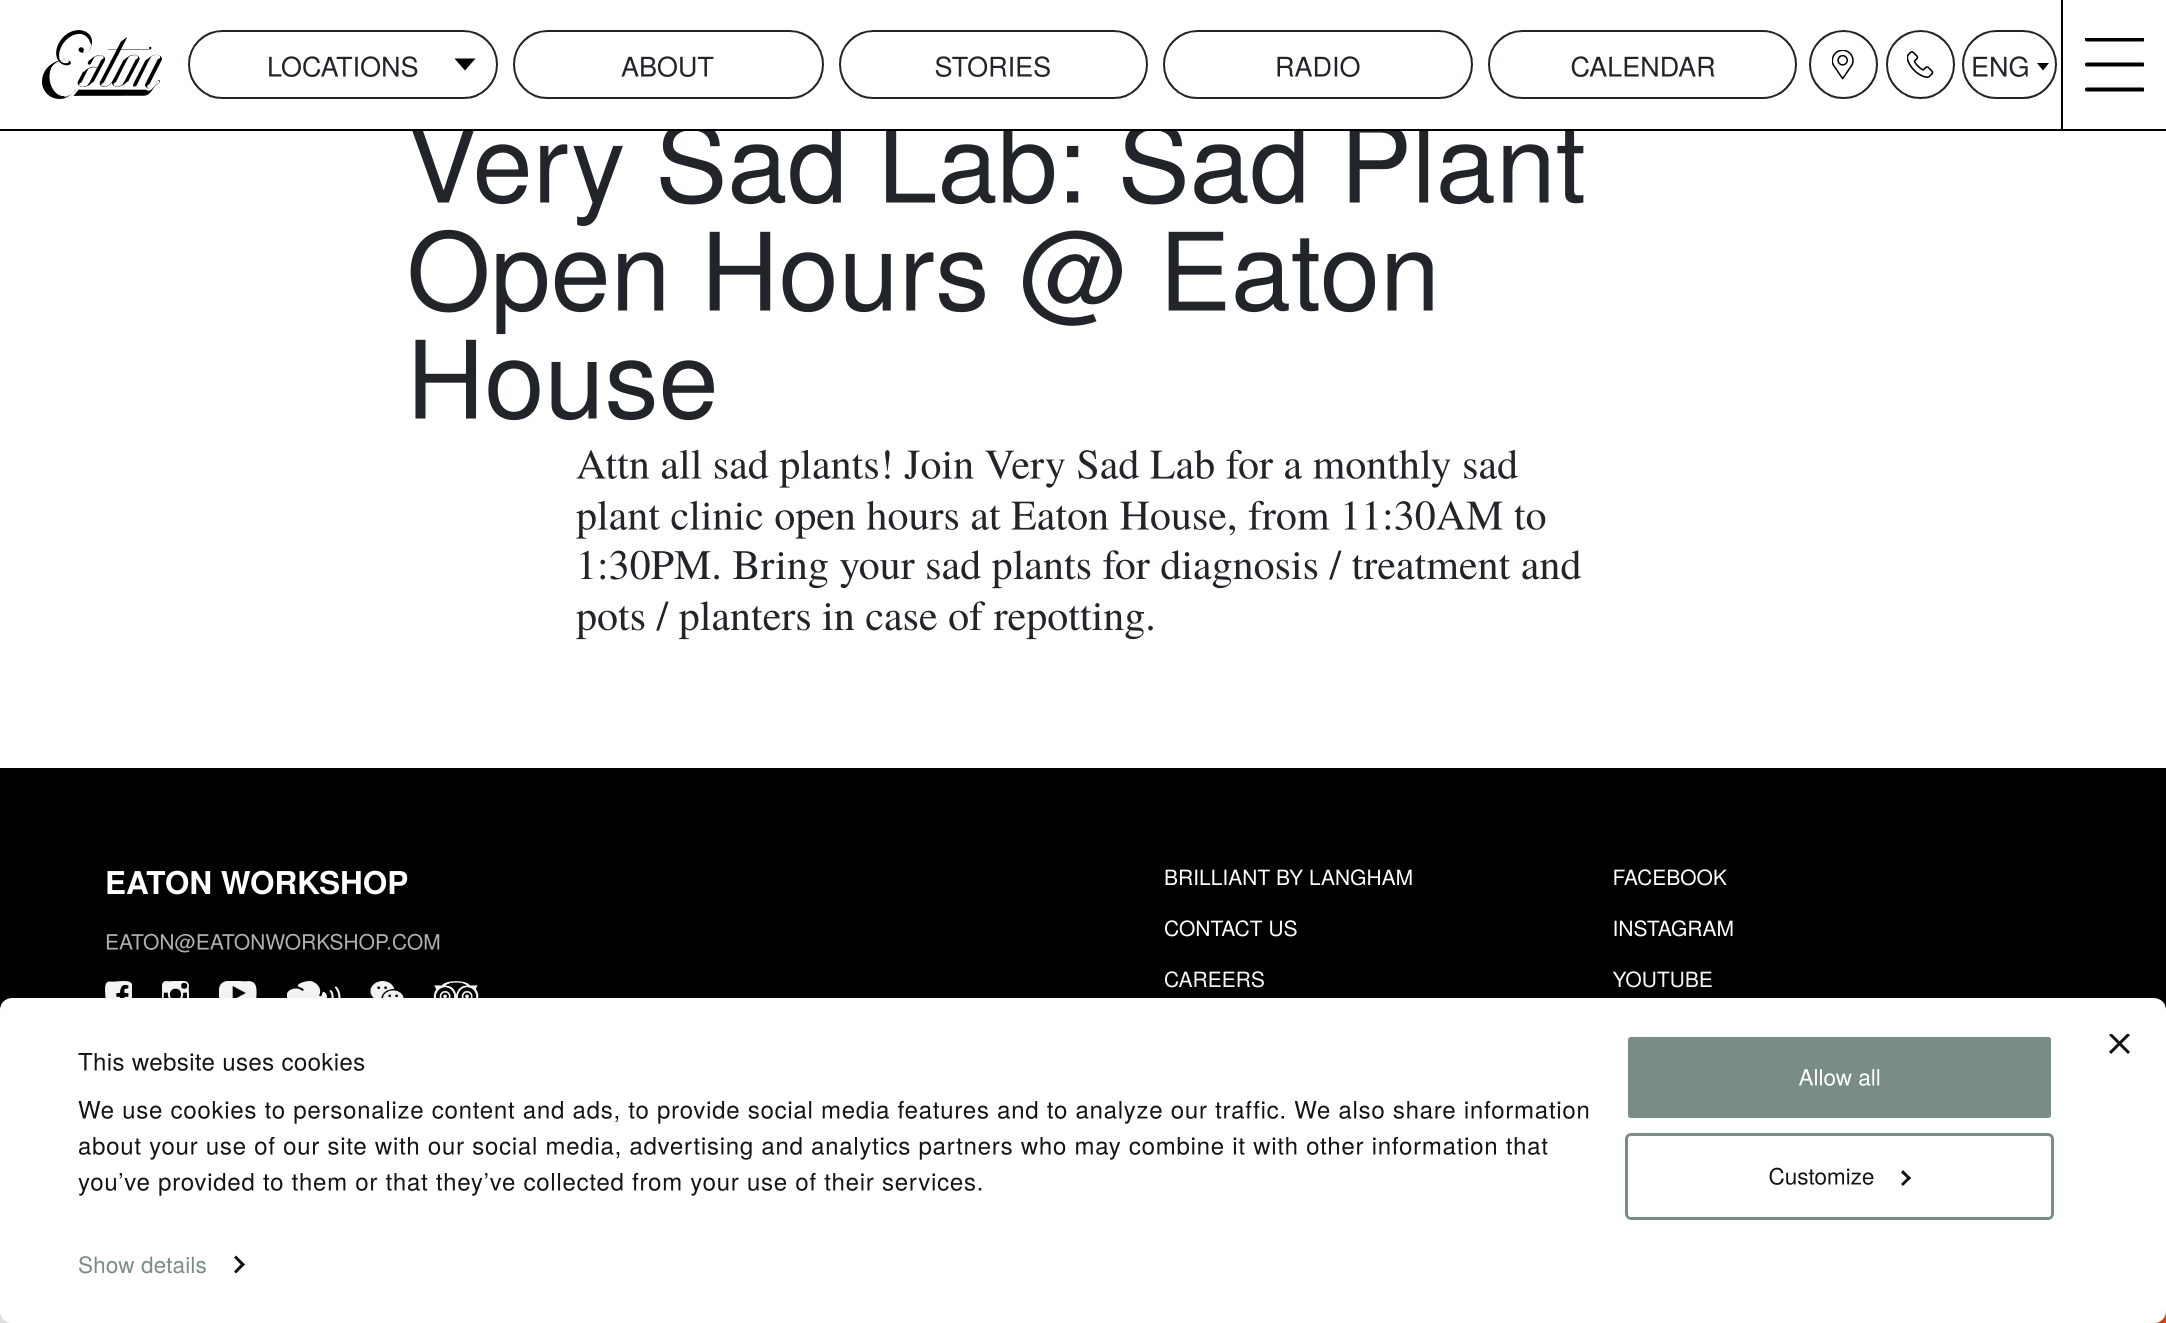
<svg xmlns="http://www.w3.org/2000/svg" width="2166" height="1323">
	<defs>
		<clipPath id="clip1"><rect x="2085" y="38" width="59" height="54" /></clipPath>
	</defs>
	<rect width="100%" height="100%" fill="#FFFFFF" />
	<rect x="0" y="129" width="2166" height="2" fill="#000000" />
	<image x="42" y="30" width="120" height="69" href="assets/img1.png" />
	<rect x="189" y="31" width="308" height="67" rx="33.5" fill="none" stroke="#212529" stroke-width="2" />
	<image x="269" y="56" width="149" height="21" href="assets/img2.png" />
	<path d="M454.5 58.5H475.5L465 70.5Z" fill="#000000" />
	<rect x="514" y="31" width="309" height="67" rx="33.5" fill="none" stroke="#212529" stroke-width="2" />
	<image x="621" y="56" width="93" height="21" href="assets/img3.png" />
	<rect x="840" y="31" width="307" height="67" rx="33.5" fill="none" stroke="#212529" stroke-width="2" />
	<image x="935" y="56" width="115" height="21" href="assets/img4.png" />
	<rect x="1164" y="31" width="308" height="67" rx="33.5" fill="none" stroke="#212529" stroke-width="2" />
	<image x="1277" y="56" width="83" height="21" href="assets/img5.png" />
	<rect x="1489" y="31" width="307" height="67" rx="33.5" fill="none" stroke="#212529" stroke-width="2" />
	<image x="1571" y="56" width="144" height="21" href="assets/img6.png" />
	<circle cx="1843.5" cy="64.5" r="33.5" fill="none" stroke="#212529" stroke-width="2" />
	<image x="1832" y="50" width="22" height="30" href="assets/img7.png" />
	<circle cx="1920.5" cy="64.5" r="33.5" fill="none" stroke="#212529" stroke-width="2" />
	<image x="1907" y="51" width="27" height="27" href="assets/img8.png" />
	<rect x="1963" y="31" width="93" height="67" rx="33.5" fill="none" stroke="#212529" stroke-width="2" />
	<image x="1973" y="56" width="55" height="21" href="assets/img9.png" />
	<path d="M2037 63H2049L2043 70.5Z" fill="#000000" />
	<rect x="2061" y="0" width="2" height="129" fill="#000000" />
	<g clip-path="url(#clip1)">
		<path d="M2142.5 89.5H2087M2142.5 39.5H2087M2142.5 64.5H2087" fill="none" stroke="#000000" stroke-width="4.2" stroke-linecap="round" />
	</g>
	<image x="412" y="131" width="1172" height="95" href="assets/img10.png" />
	<image x="410" y="229" width="1023" height="106" href="assets/img11.png" />
	<image x="415" y="339" width="299" height="82" href="assets/img12.png" />
	<image x="576" y="449" width="942" height="39" href="assets/img13.png" />
	<image x="576" y="500" width="970" height="39" href="assets/img14.png" />
	<image x="580" y="550" width="1002" height="39" href="assets/img15.png" />
	<image x="576" y="601" width="577" height="39" href="assets/img16.png" />
	<rect x="0" y="768" width="2166" height="242" fill="#000000" />
	<image x="107" y="870" width="301" height="25" href="assets/img17.png" />
	<image x="106" y="933" width="334" height="20" href="assets/img18.png" />
	<image x="105" y="981" width="27" height="17" href="assets/img19.png" />
	<image x="162" y="981" width="27" height="17" href="assets/img20.png" />
	<image x="219" y="981" width="38" height="17" href="assets/img21.png" />
	<image x="287" y="981" width="54" height="17" href="assets/img22.png" />
	<image x="370" y="981" width="34" height="17" href="assets/img23.png" />
	<image x="433" y="981" width="46" height="17" href="assets/img24.png" />
	<image x="1165" y="869" width="247" height="17" href="assets/img25.png" />
	<image x="1165" y="920" width="132" height="17" href="assets/img26.png" />
	<image x="1165" y="971" width="99" height="17" href="assets/img27.png" />
	<image x="1614" y="869" width="113" height="17" href="assets/img28.png" />
	<image x="1614" y="920" width="119" height="17" href="assets/img29.png" />
	<image x="1612" y="971" width="100" height="17" href="assets/img30.png" />
	<rect x="2154" y="1311" width="12" height="12" fill="#FF4700" />
	<rect x="0" y="1043" width="2166" height="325" rx="12" fill="#000000" fill-opacity="0.3" filter="blur(52.5px)" />
	<rect x="0" y="998" width="2166" height="325" rx="12" fill="#FFFFFF" />
	<rect x="1626.5" y="1035.5" width="426" height="84" rx="4.5" fill="#798D84" stroke="#FFFFFF" stroke-width="3" />
	<image x="1799" y="1069" width="81" height="17" href="assets/img31.png" />
	<rect x="1626.5" y="1134.5" width="426" height="84" rx="4.5" fill="none" stroke="#798D84" stroke-width="3" />
	<image x="1769" y="1167" width="105" height="18" href="assets/img32.png" />
	<path d="M1903 1170L1911 1178L1909 1180L1901 1172.5Z" fill="#141414" />
	<path d="M1909 1176L1911 1178L1903 1186L1901 1184Z" fill="#141414" />
	<image x="2109" y="1034" width="21" height="20" href="assets/img33.png" />
	<image x="78" y="1053" width="287" height="18" href="assets/img34.png" />
	<image x="78" y="1100" width="1511" height="24" href="assets/img35.png" />
	<image x="79" y="1136" width="1469" height="24" href="assets/img36.png" />
	<image x="78" y="1172" width="904" height="24" href="assets/img37.png" />
	<image x="79" y="1256" width="127" height="18" href="assets/img38.png" />
	<path d="M236 1255.5L245 1264.5L242.5 1266.5L234 1257.5Z" fill="#141414" />
	<path d="M242.5 1262.5L245 1264.5L236 1273.5L234 1271.5Z" fill="#141414" />
</svg>
